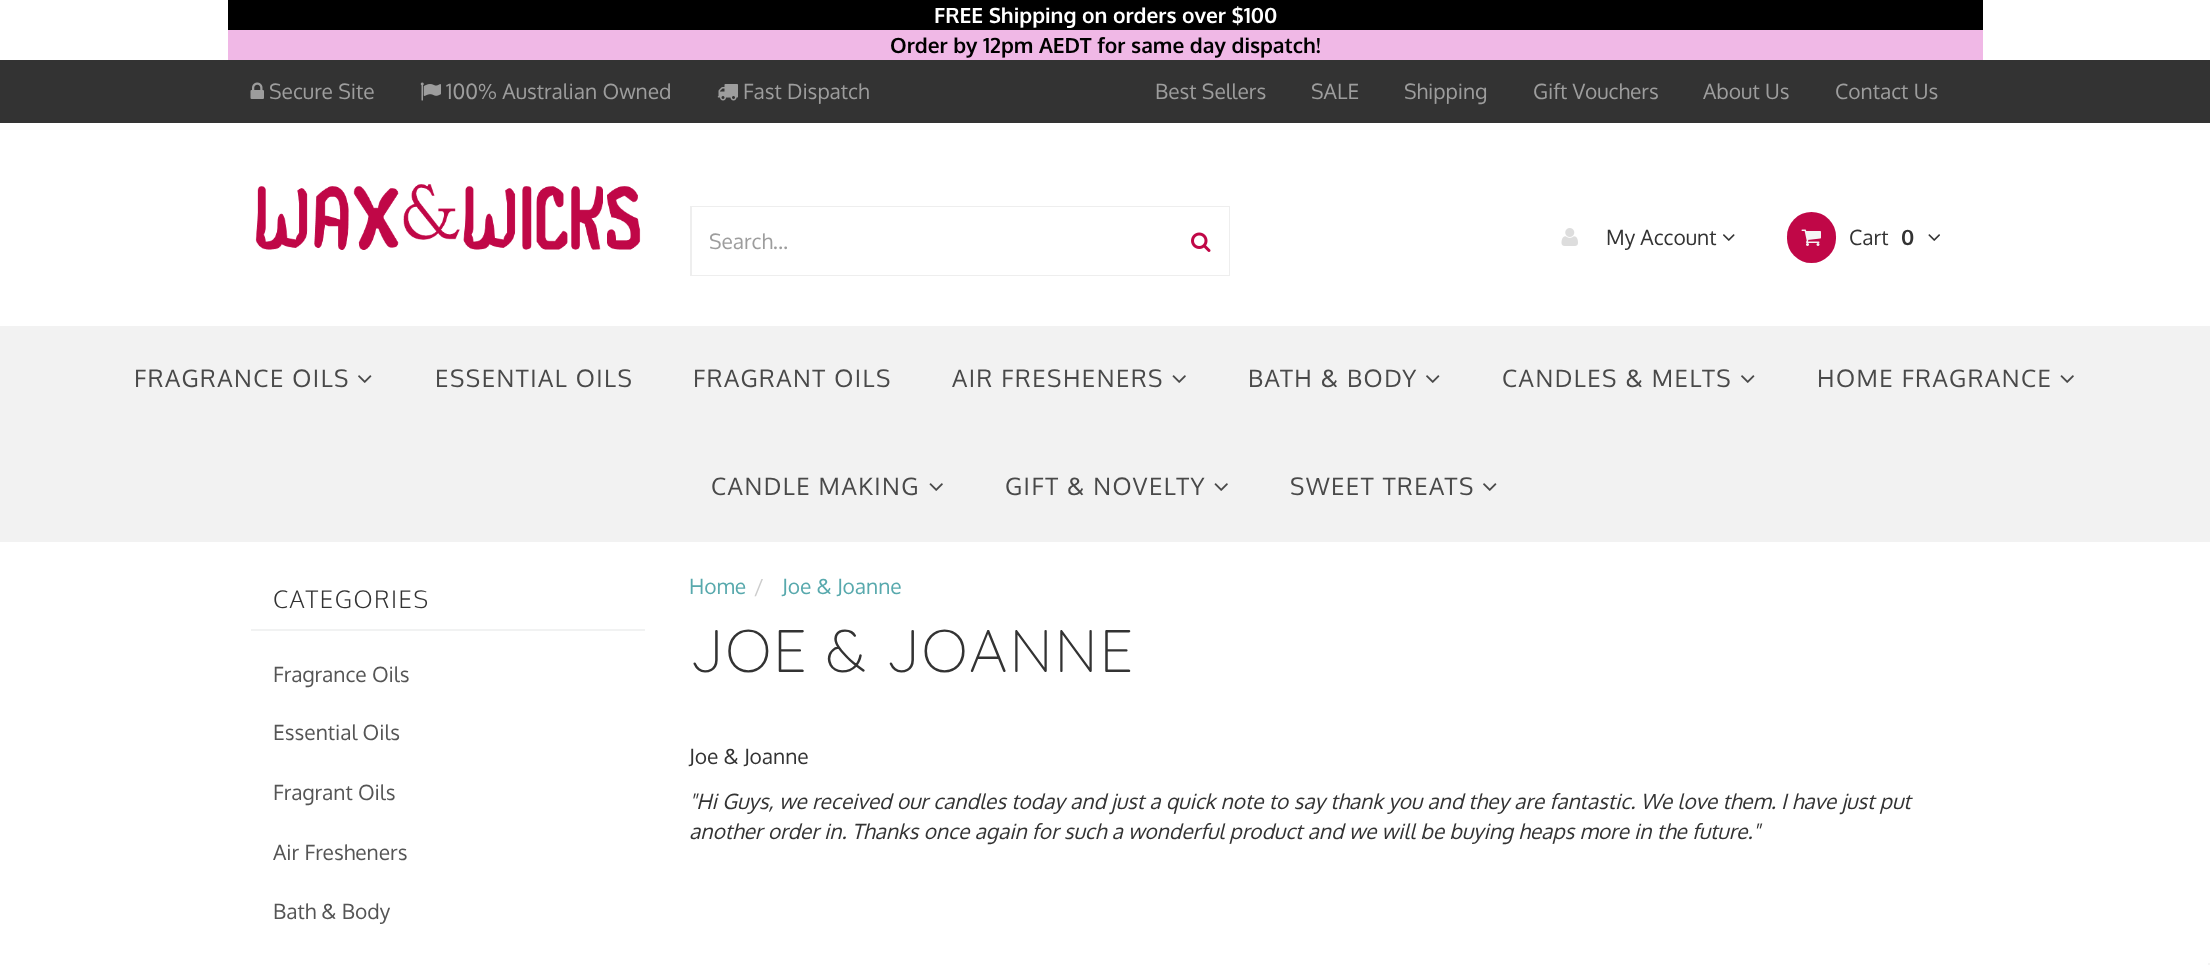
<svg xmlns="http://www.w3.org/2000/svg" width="2210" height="965">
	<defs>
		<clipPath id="clip1"><rect x="710" y="228" width="447" height="26" /></clipPath>
	</defs>
	<rect width="100%" height="100%" fill="#FFFFFF" />
	<rect x="228" y="0" width="1755" height="30" fill="#000000" />
	<text x="934" y="23" font-family="Oxygen" font-size="21" font-weight="700" fill="#FFFFFF">FREE Shipping on orders over $100</text>
	<rect x="228" y="30" width="1755" height="30" fill="#F0B8E6" />
	<text x="890" y="53" font-family="Oxygen" font-size="21" font-weight="700" fill="#000000">Order by 12pm AEDT for same day dispatch!</text>
	<rect x="0" y="60" width="2210" height="63" fill="#333333" />
	<image x="250" y="82" width="14" height="17" href="assets/img1.png" />
	<text x="269" y="99" font-family="Oxygen" font-size="21" fill="#9D9D9D">Secure Site</text>
	<image x="420" y="82" width="21" height="19" href="assets/img2.png" />
	<text x="446" y="99" font-family="Oxygen" font-size="21" fill="#9D9D9D">100% Australian Owned</text>
	<image x="717" y="84" width="21" height="17" href="assets/img3.png" />
	<g font-family="Oxygen" font-size="21" fill="#9D9D9D">
		<text x="743" y="99">Fast Dispatch</text>
		<text x="1155" y="99">Best Sellers</text>
		<text x="1311" y="99">SALE</text>
		<text x="1404" y="99">Shipping</text>
		<text x="1533" y="99">Gift Vouchers</text>
		<text x="1703" y="99">About Us</text>
		<text x="1835" y="99">Contact Us</text>
	</g>
	<image x="255" y="184" width="386" height="66" href="assets/img4.png" />
	<rect x="691" y="207" width="538" height="68" fill="none" stroke="#EEEEEE" stroke-width="2" />
	<rect x="692" y="207" width="537" height="68" fill="#FFFFFF" />
	<g clip-path="url(#clip1)">
		<text x="709" y="249" font-family="Oxygen" font-size="21" fill="#9D9D9D">Search...</text>
	</g>
	<image x="1191" y="232" width="20" height="20" href="assets/img5.png" />
	<image x="1561" y="228" width="17" height="18" href="assets/img6.png" />
	<text x="1606" y="245" font-family="Oxygen" font-size="21" fill="#333333">My Account</text>
	<image x="1723" y="234" width="12" height="7" href="assets/img7.png" />
	<rect x="1787" y="212" width="49" height="51" rx="24.5" fill="#C00747" />
	<image x="1801" y="229" width="20" height="17" href="assets/img8.png" />
	<text x="1849" y="245" font-family="Oxygen" font-size="21" fill="#333333">Cart</text>
	<text x="1901" y="245" font-family="Oxygen" font-size="21" font-weight="700" fill="#333333">0</text>
	<image x="1928" y="234" width="12" height="7" href="assets/img9.png" />
	<rect x="0" y="326" width="2210" height="216" fill="#F2F2F2" />
	<text x="134" y="387" font-family="Oxygen" font-size="24" letter-spacing="1.5" fill="#494949">FRAGRANCE OILS</text>
	<image x="358" y="375" width="14" height="8" href="assets/img10.png" />
	<g font-family="Oxygen" font-size="24" letter-spacing="1.5" fill="#494949">
		<text x="435" y="387">ESSENTIAL OILS</text>
		<text x="693" y="387">FRAGRANT OILS</text>
		<text x="952" y="387">AIR FRESHENERS</text>
	</g>
	<image x="1172" y="375" width="14" height="8" href="assets/img11.png" />
	<text x="1248" y="387" font-family="Oxygen" font-size="24" letter-spacing="1.5" fill="#494949">BATH &amp; BODY</text>
	<image x="1426" y="375" width="14" height="8" href="assets/img10.png" />
	<text x="1502" y="387" font-family="Oxygen" font-size="24" letter-spacing="1.5" fill="#494949">CANDLES &amp; MELTS</text>
	<image x="1741" y="375" width="14" height="8" href="assets/img10.png" />
	<text x="1817" y="387" font-family="Oxygen" font-size="24" letter-spacing="1.5" fill="#494949">HOME FRAGRANCE</text>
	<image x="2060" y="375" width="14" height="8" href="assets/img11.png" />
	<text x="711" y="495" font-family="Oxygen" font-size="24" letter-spacing="1.5" fill="#494949">CANDLE MAKING</text>
	<image x="929" y="483" width="14" height="8" href="assets/img11.png" />
	<text x="1005" y="495" font-family="Oxygen" font-size="24" letter-spacing="1.5" fill="#494949">GIFT &amp; NOVELTY</text>
	<image x="1214" y="483" width="14" height="8" href="assets/img11.png" />
	<text x="1290" y="495" font-family="Oxygen" font-size="24" letter-spacing="1.5" fill="#494949">SWEET TREATS</text>
	<image x="1483" y="483" width="14" height="8" href="assets/img10.png" />
	<rect x="251" y="629" width="394" height="2" fill="#F1F2F2" />
	<text x="273" y="608" font-family="Oxygen" font-size="24" font-weight="300" letter-spacing="1.5" fill="#333333">CATEGORIES</text>
	<g font-family="Oxygen" font-size="21" fill="#555555">
		<text x="273" y="682">Fragrance Oils</text>
		<text x="273" y="740">Essential Oils</text>
		<text x="273" y="800">Fragrant Oils</text>
		<text x="273" y="860">Air Fresheners</text>
		<text x="273" y="919">Bath &amp; Body</text>
	</g>
	<text x="689" y="594" font-family="Oxygen" font-size="21" fill="#58A9AD">Home</text>
	<text x="754" y="594" font-family="Oxygen" font-size="21" fill="#CCCCCC">/</text>
	<text x="782" y="594" font-family="Oxygen" font-size="21" fill="#58A9AD">Joe &amp; Joanne</text>
	<text x="689" y="672" font-family="Quicksand" font-size="60" font-weight="300" letter-spacing="1.5" fill="#333333">JOE &amp; JOANNE</text>
	<text x="689" y="764" font-family="Oxygen" font-size="21" fill="#333333">Joe &amp; Joanne</text>
	<g font-family="Oxygen" font-size="21" font-style="italic" fill="#333333">
		<text x="689" y="809">"Hi Guys, we received our candles today and just a quick note to say thank you and they are fantastic. We love them. I have just put</text>
		<text x="689" y="839">another order in. Thanks once again for such a wonderful product and we will be buying heaps more in the future."</text>
	</g>
	<rect x="2208" y="963" width="2" height="2" fill="#F5F5F5" />
</svg>
